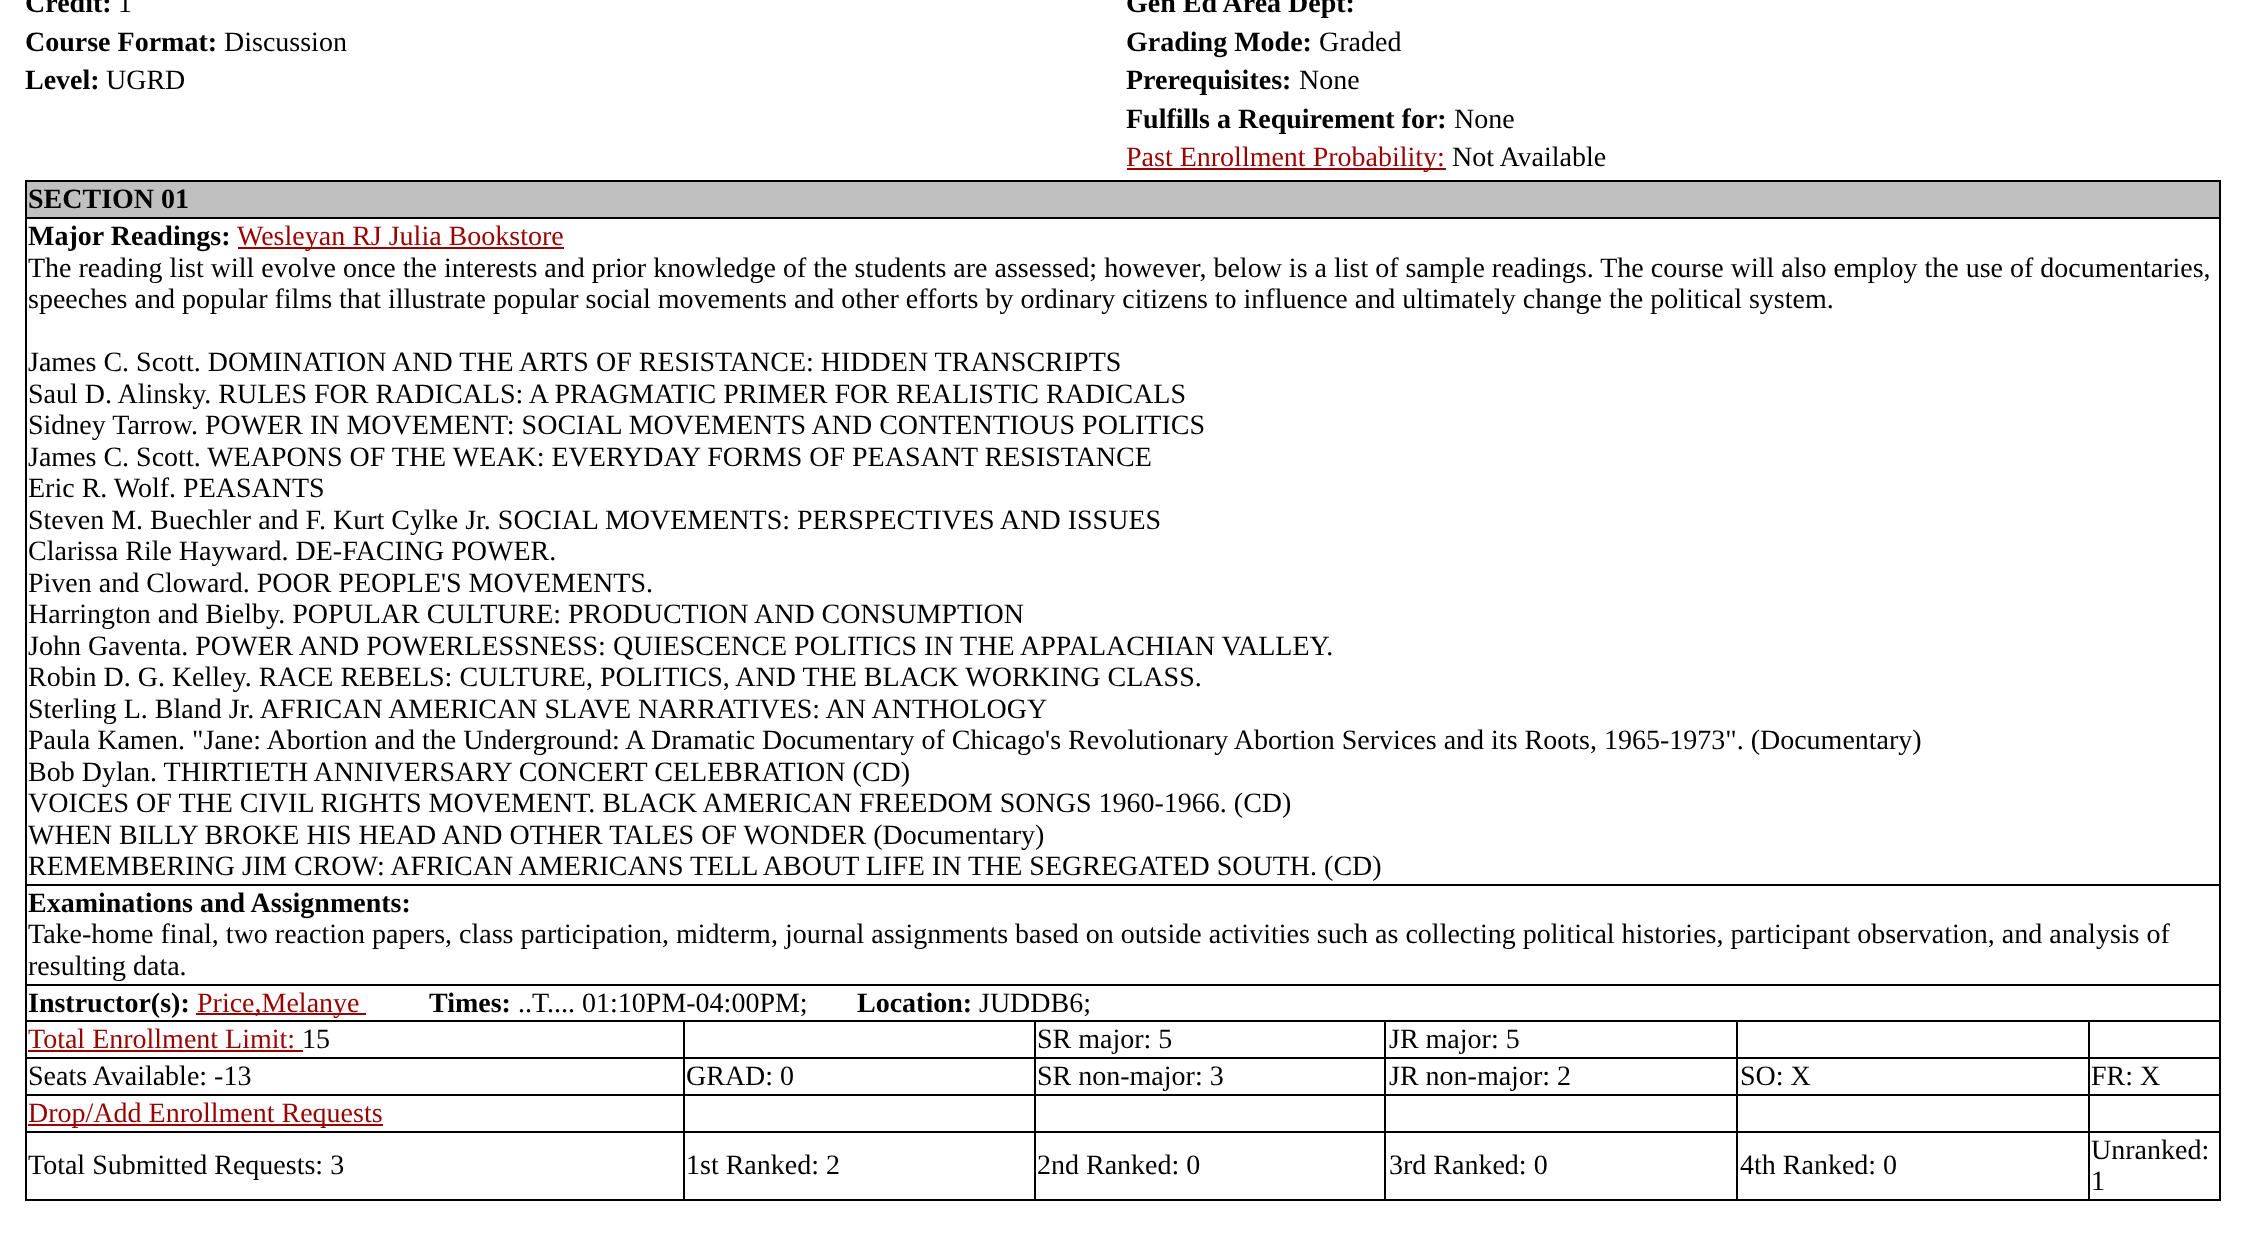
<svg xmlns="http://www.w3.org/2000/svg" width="2245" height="1245">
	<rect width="100%" height="100%" fill="#FFFFFF" />
	<text x="25" y="12" font-family="Liberation Serif" font-size="28" font-weight="700" fill="#000000">Credit:</text>
	<text x="118" y="12" font-family="Liberation Serif" font-size="28" fill="#000000">1</text>
	<g font-family="Liberation Serif" font-size="28" font-weight="700" fill="#000000">
		<text x="1126" y="12">Gen Ed Area Dept:</text>
		<text x="25" y="51">Course Format:</text>
	</g>
	<text x="224" y="51" font-family="Liberation Serif" font-size="28" fill="#000000">Discussion</text>
	<text x="1126" y="51" font-family="Liberation Serif" font-size="28" font-weight="700" fill="#000000">Grading Mode:</text>
	<text x="1319" y="51" font-family="Liberation Serif" font-size="28" fill="#000000">Graded</text>
	<text x="25" y="89" font-family="Liberation Serif" font-size="28" font-weight="700" fill="#000000">Level:</text>
	<text x="106" y="89" font-family="Liberation Serif" font-size="28" fill="#000000">UGRD</text>
	<text x="1126" y="89" font-family="Liberation Serif" font-size="28" font-weight="700" fill="#000000">Prerequisites:</text>
	<text x="1299" y="89" font-family="Liberation Serif" font-size="28" fill="#000000">None</text>
	<text x="1126" y="128" font-family="Liberation Serif" font-size="28" font-weight="700" fill="#000000">Fulfills a Requirement for:</text>
	<text x="1454" y="128" font-family="Liberation Serif" font-size="28" fill="#000000">None</text>
	<rect x="1127" y="168" width="319" height="2" fill="#990000" />
	<text x="1126" y="166" font-family="Liberation Serif" font-size="28" fill="#990000">Past Enrollment Probability:</text>
	<text x="1452" y="166" font-family="Liberation Serif" font-size="28" fill="#000000">Not Available</text>
	<rect x="25" y="180" width="2196" height="2" fill="#000000" />
	<rect x="2219" y="180" width="2" height="1021" fill="#000000" />
	<rect x="25" y="1199" width="2196" height="2" fill="#000000" />
	<rect x="25" y="180" width="2" height="1021" fill="#000000" />
	<rect x="27" y="182" width="2192" height="35" fill="#C0C0C0" />
	<text x="28" y="208" font-family="Liberation Serif" font-size="28" font-weight="700" fill="#000000">SECTION 01</text>
	<rect x="25" y="217" width="2196" height="2" fill="#000000" />
	<text x="28" y="245" font-family="Liberation Serif" font-size="28" font-weight="700" fill="#000000">Major Readings:</text>
	<rect x="238" y="247" width="326" height="2" fill="#990000" />
	<text x="237" y="245" font-family="Liberation Serif" font-size="28" fill="#990000">Wesleyan RJ Julia Bookstore</text>
	<g font-family="Liberation Serif" font-size="28" fill="#000000">
		<text x="28" y="277">The reading list will evolve once the interests and prior knowledge of the students are assessed; however, below is a list of sample readings. The course will also employ the use of documentaries,</text>
		<text x="28" y="308">speeches and popular films that illustrate popular social movements and other efforts by ordinary citizens to influence and ultimately change the political system.</text>
		<text x="28" y="371">James C. Scott. DOMINATION AND THE ARTS OF RESISTANCE: HIDDEN TRANSCRIPTS</text>
		<text x="28" y="403">Saul D. Alinsky. RULES FOR RADICALS: A PRAGMATIC PRIMER FOR REALISTIC RADICALS</text>
		<text x="28" y="434">Sidney Tarrow. POWER IN MOVEMENT: SOCIAL MOVEMENTS AND CONTENTIOUS POLITICS</text>
		<text x="28" y="466">James C. Scott. WEAPONS OF THE WEAK: EVERYDAY FORMS OF PEASANT RESISTANCE</text>
		<text x="28" y="497">Eric R. Wolf. PEASANTS</text>
		<text x="28" y="529">Steven M. Buechler and F. Kurt Cylke Jr. SOCIAL MOVEMENTS: PERSPECTIVES AND ISSUES</text>
		<text x="28" y="560">Clarissa Rile Hayward. DE-FACING POWER.</text>
		<text x="28" y="592">Piven and Cloward. POOR PEOPLE'S MOVEMENTS.</text>
		<text x="28" y="623">Harrington and Bielby. POPULAR CULTURE: PRODUCTION AND CONSUMPTION</text>
		<text x="28" y="655">John Gaventa. POWER AND POWERLESSNESS: QUIESCENCE POLITICS IN THE APPALACHIAN VALLEY.</text>
		<text x="28" y="686">Robin D. G. Kelley. RACE REBELS: CULTURE, POLITICS, AND THE BLACK WORKING CLASS.</text>
		<text x="28" y="718">Sterling L. Bland Jr. AFRICAN AMERICAN SLAVE NARRATIVES: AN ANTHOLOGY</text>
		<text x="28" y="749">Paula Kamen. "Jane: Abortion and the Underground: A Dramatic Documentary of Chicago's Revolutionary Abortion Services and its Roots, 1965-1973". (Documentary)</text>
		<text x="28" y="781">Bob Dylan. THIRTIETH ANNIVERSARY CONCERT CELEBRATION (CD)</text>
		<text x="28" y="812">VOICES OF THE CIVIL RIGHTS MOVEMENT. BLACK AMERICAN FREEDOM SONGS 1960-1966. (CD)</text>
		<text x="28" y="844">WHEN BILLY BROKE HIS HEAD AND OTHER TALES OF WONDER (Documentary)</text>
		<text x="28" y="875">REMEMBERING JIM CROW: AFRICAN AMERICANS TELL ABOUT LIFE IN THE SEGREGATED SOUTH. (CD)</text>
	</g>
	<rect x="25" y="884" width="2196" height="2" fill="#000000" />
	<text x="28" y="912" font-family="Liberation Serif" font-size="28" font-weight="700" fill="#000000">Examinations and Assignments:</text>
	<g font-family="Liberation Serif" font-size="28" fill="#000000">
		<text x="28" y="943">Take-home final, two reaction papers, class participation, midterm, journal assignments based on outside activities such as collecting political histories, participant observation, and analysis of</text>
		<text x="28" y="975">resulting data.</text>
	</g>
	<rect x="25" y="984" width="2196" height="2" fill="#000000" />
	<text x="28" y="1012" font-family="Liberation Serif" font-size="28" font-weight="700" fill="#000000">Instructor(s):</text>
	<rect x="196" y="1013" width="170" height="2" fill="#990000" />
	<text x="197" y="1012" font-family="Liberation Serif" font-size="28" fill="#990000">Price,Melanye</text>
	<text x="429" y="1012" font-family="Liberation Serif" font-size="28" font-weight="700" fill="#000000">Times:</text>
	<text x="518" y="1012" font-family="Liberation Serif" font-size="28" fill="#000000">..T.... 01:10PM-04:00PM;</text>
	<text x="857" y="1012" font-family="Liberation Serif" font-size="28" font-weight="700" fill="#000000">Location:</text>
	<text x="979" y="1012" font-family="Liberation Serif" font-size="28" fill="#000000">JUDDB6;</text>
	<rect x="2088" y="1020" width="133" height="2" fill="#000000" />
	<rect x="2088" y="1057" width="133" height="2" fill="#000000" />
	<rect x="2088" y="1094" width="133" height="2" fill="#000000" />
	<rect x="2088" y="1131" width="133" height="2" fill="#000000" />
	<rect x="2088" y="1131" width="2" height="70" fill="#000000" />
	<rect x="1736" y="1131" width="354" height="2" fill="#000000" />
	<rect x="2088" y="1094" width="2" height="38" fill="#000000" />
	<rect x="1736" y="1094" width="354" height="2" fill="#000000" />
	<rect x="2088" y="1057" width="2" height="39" fill="#000000" />
	<rect x="1736" y="1057" width="354" height="2" fill="#000000" />
	<rect x="2088" y="1020" width="2" height="39" fill="#000000" />
	<rect x="1736" y="1020" width="354" height="2" fill="#000000" />
	<rect x="1736" y="1131" width="2" height="70" fill="#000000" />
	<rect x="1384" y="1131" width="354" height="2" fill="#000000" />
	<rect x="1736" y="1094" width="2" height="38" fill="#000000" />
	<rect x="1384" y="1094" width="354" height="2" fill="#000000" />
	<rect x="1736" y="1057" width="2" height="39" fill="#000000" />
	<rect x="1384" y="1057" width="354" height="2" fill="#000000" />
	<rect x="1736" y="1020" width="2" height="39" fill="#000000" />
	<rect x="1384" y="1020" width="354" height="2" fill="#000000" />
	<rect x="1384" y="1131" width="2" height="70" fill="#000000" />
	<rect x="1034" y="1131" width="352" height="2" fill="#000000" />
	<rect x="1384" y="1094" width="2" height="38" fill="#000000" />
	<rect x="1034" y="1094" width="352" height="2" fill="#000000" />
	<rect x="1384" y="1057" width="2" height="39" fill="#000000" />
	<rect x="1034" y="1057" width="352" height="2" fill="#000000" />
	<rect x="1384" y="1020" width="2" height="39" fill="#000000" />
	<rect x="1034" y="1020" width="352" height="2" fill="#000000" />
	<rect x="1034" y="1131" width="2" height="70" fill="#000000" />
	<rect x="683" y="1131" width="353" height="2" fill="#000000" />
	<rect x="1034" y="1094" width="2" height="38" fill="#000000" />
	<rect x="683" y="1094" width="353" height="2" fill="#000000" />
	<rect x="1034" y="1057" width="2" height="39" fill="#000000" />
	<rect x="683" y="1057" width="353" height="2" fill="#000000" />
	<rect x="1034" y="1020" width="2" height="39" fill="#000000" />
	<rect x="683" y="1020" width="353" height="2" fill="#000000" />
	<rect x="683" y="1131" width="2" height="70" fill="#000000" />
	<rect x="25" y="1131" width="659" height="2" fill="#000000" />
	<rect x="683" y="1094" width="2" height="38" fill="#000000" />
	<rect x="25" y="1094" width="659" height="2" fill="#000000" />
	<rect x="683" y="1057" width="2" height="39" fill="#000000" />
	<rect x="25" y="1057" width="659" height="2" fill="#000000" />
	<rect x="683" y="1020" width="2" height="39" fill="#000000" />
	<rect x="25" y="1020" width="659" height="2" fill="#000000" />
	<text x="28" y="1048" font-family="Liberation Serif" font-size="28" fill="#990000">Total Enrollment Limit:</text>
	<rect x="28" y="1050" width="275" height="2" fill="#990000" />
	<g font-family="Liberation Serif" font-size="28" fill="#000000">
		<text x="302" y="1048">15</text>
		<text x="1037" y="1048">SR major: 5</text>
		<text x="1389" y="1048">JR major: 5</text>
		<text x="28" y="1085">Seats Available: -13</text>
		<text x="686" y="1085">GRAD: 0</text>
		<text x="1037" y="1085">SR non-major: 3</text>
		<text x="1389" y="1085">JR non-major: 2</text>
		<text x="1740" y="1085">SO: X</text>
		<text x="2091" y="1085">FR: X</text>
	</g>
	<rect x="28" y="1124" width="355" height="2" fill="#990000" />
	<text x="28" y="1122" font-family="Liberation Serif" font-size="28" fill="#990000">Drop/Add Enrollment Requests</text>
	<g font-family="Liberation Serif" font-size="28" fill="#000000">
		<text x="28" y="1174">Total Submitted Requests: 3</text>
		<text x="686" y="1174">1st Ranked: 2</text>
		<text x="1037" y="1174">2nd Ranked: 0</text>
		<text x="1389" y="1174">3rd Ranked: 0</text>
		<text x="1740" y="1174">4th Ranked: 0</text>
		<text x="2091" y="1159">Unranked:</text>
		<text x="2091" y="1190">1</text>
	</g>
</svg>
